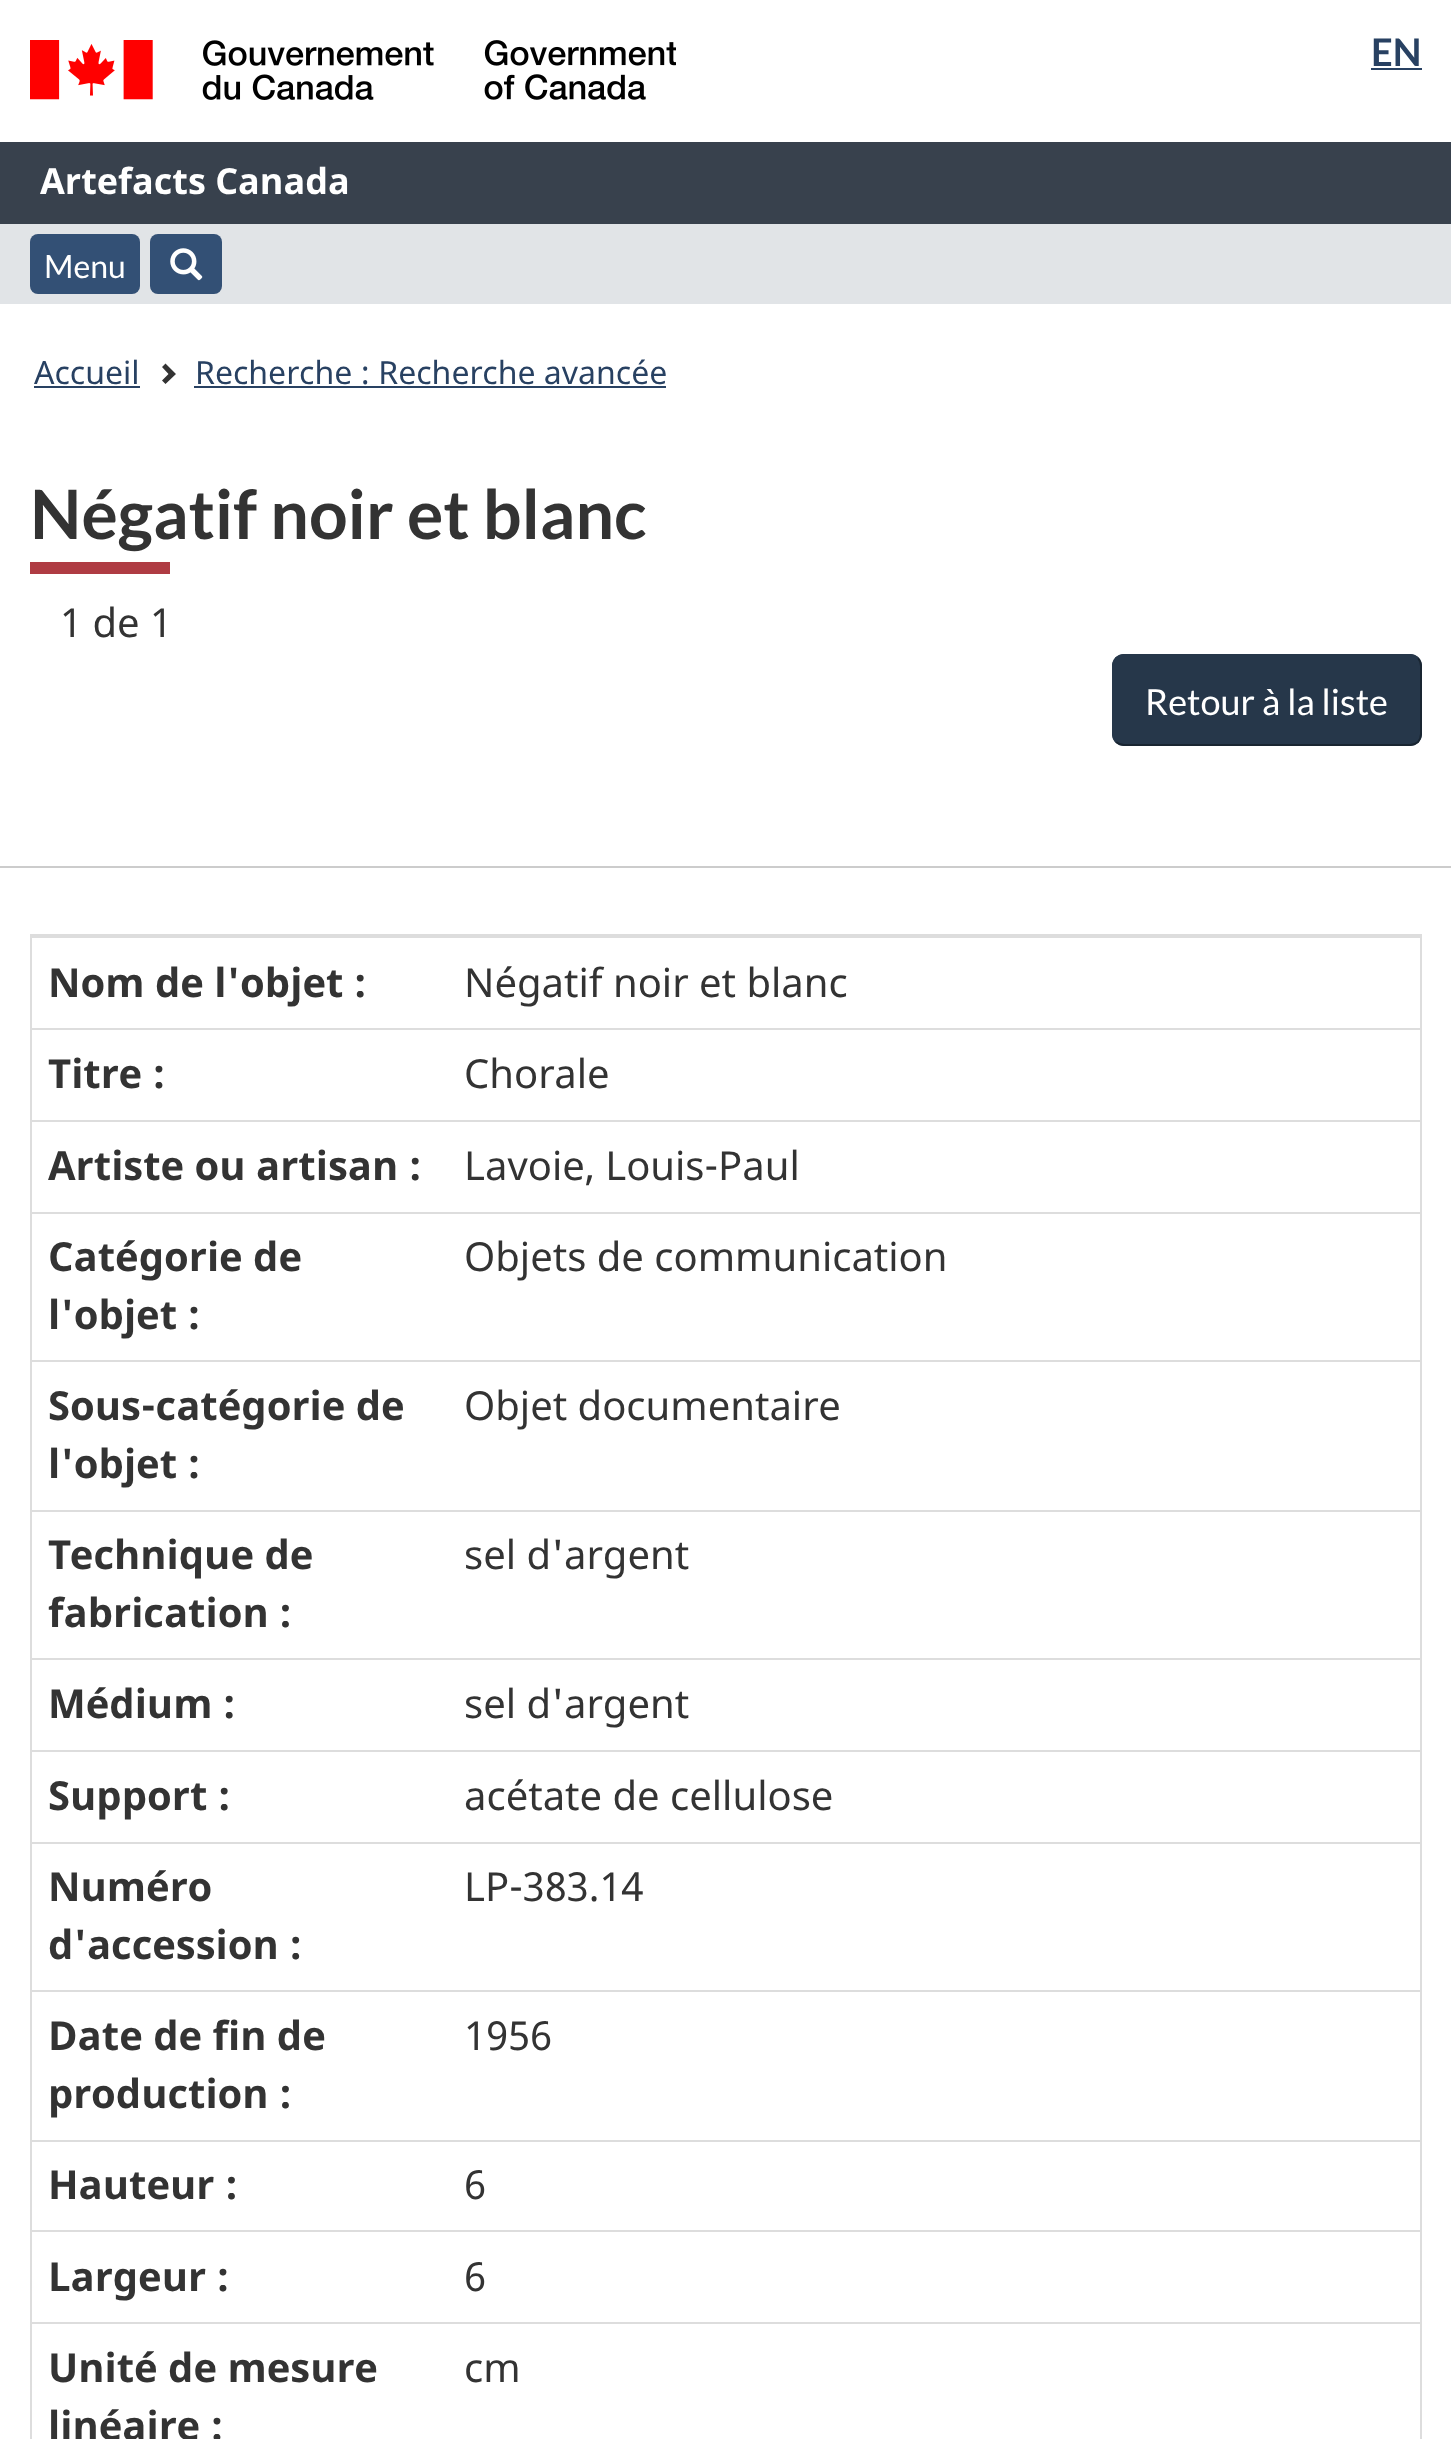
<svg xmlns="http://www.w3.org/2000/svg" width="1451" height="2439">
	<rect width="100%" height="100%" fill="#FFFFFF" />
	<image x="30" y="40" width="646" height="60" href="assets/img1.png" />
	<text x="1371" y="66" font-family="Lato" font-size="38" font-weight="700" fill="#284162">EN</text>
	<path d="M1371 69H1422" fill="none" stroke="#284162" stroke-width="2" stroke-dasharray="2 2" />
	<rect x="1372" y="68" width="50" height="2" fill="#284162" />
	<rect x="0" y="142" width="1451" height="82" fill="#38414D" />
	<text x="40" y="194" font-family="Noto Sans" font-size="36" font-weight="700" fill="#FFFFFF">Artefacts Canada</text>
	<rect x="0" y="224" width="1451" height="80" fill="#E1E4E7" />
	<rect x="30" y="234" width="110" height="60" rx="8" fill="#335075" />
	<text x="44" y="278" font-family="Lato" font-size="32" fill="#FFFFFF">Menu</text>
	<rect x="150" y="234" width="72" height="60" rx="8" fill="#335075" />
	<image x="170" y="248" width="33" height="33" href="assets/img2.png" />
	<text x="34" y="384" font-family="Noto Sans" font-size="32" fill="#284162">Accueil</text>
	<rect x="34" y="386" width="106" height="2" fill="#284162" />
	<path d="M176 374L165.5 384L162 380.5L168.5 374L162 367L165.5 363.5Z" fill="#333333" />
	<text x="195" y="384" font-family="Noto Sans" font-size="32" fill="#284162">Recherche : Recherche avancée</text>
	<rect x="194" y="386" width="472" height="2" fill="#284162" />
	<rect x="30" y="562" width="140" height="12" fill="#AF3C43" />
	<text x="30" y="539" font-family="Lato" font-size="68" font-weight="700" fill="#333333">Négatif noir et blanc</text>
	<text x="60" y="637" font-family="Noto Sans" font-size="40" fill="#333333">1 de 1</text>
	<rect x="1112" y="654" width="310" height="92" rx="12" fill="#26374A" />
	<path d="M1418 658C1420 660.5 1421 663 1421 666V734C1421 737 1420 739.5 1418 742C1415.5 744 1413 745 1410 745H1124C1121 745 1118.5 744 1116 742" fill="none" stroke="#192531" stroke-width="2" />
	<path d="M1116 742C1114 739.5 1113 737 1113 734V666C1113 663 1114 660.5 1116 658C1118.5 656 1121 655 1124 655H1410C1413 655 1415.5 656 1418 658" fill="none" stroke="#26374A" stroke-width="2" />
	<text x="1145" y="715" font-family="Lato" font-size="36" fill="#FFFFFF">Retour à la liste</text>
	<rect x="0" y="866" width="1451" height="2" fill="#CCCCCC" />
	<rect x="31" y="935" width="1390" height="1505" fill="none" stroke="#DDDDDD" stroke-width="2" />
	<text x="48" y="997" font-family="Noto Sans" font-size="40" font-weight="700" fill="#333333">Nom de l'objet :</text>
	<rect x="32" y="936" width="1388" height="2" fill="#DDDDDD" />
	<text x="464" y="997" font-family="Noto Sans" font-size="40" fill="#333333">Négatif noir et blanc</text>
	<text x="48" y="1088" font-family="Noto Sans" font-size="40" font-weight="700" fill="#333333">Titre :</text>
	<rect x="32" y="1028" width="1388" height="2" fill="#DDDDDD" />
	<text x="464" y="1088" font-family="Noto Sans" font-size="40" fill="#333333">Chorale</text>
	<text x="48" y="1180" font-family="Noto Sans" font-size="40" font-weight="700" fill="#333333">Artiste ou artisan :</text>
	<rect x="32" y="1120" width="1388" height="2" fill="#DDDDDD" />
	<text x="464" y="1180" font-family="Noto Sans" font-size="40" fill="#333333">Lavoie, Louis-Paul</text>
	<g font-family="Noto Sans" font-size="40" font-weight="700" fill="#333333">
		<text x="48" y="1271">Catégorie de</text>
		<text x="48" y="1329">l'objet :</text>
	</g>
	<rect x="32" y="1212" width="1388" height="2" fill="#DDDDDD" />
	<text x="464" y="1271" font-family="Noto Sans" font-size="40" fill="#333333">Objets de communication</text>
	<g font-family="Noto Sans" font-size="40" font-weight="700" fill="#333333">
		<text x="48" y="1420">Sous-catégorie de</text>
		<text x="48" y="1478">l'objet :</text>
	</g>
	<rect x="32" y="1360" width="1388" height="2" fill="#DDDDDD" />
	<text x="464" y="1420" font-family="Noto Sans" font-size="40" fill="#333333">Objet documentaire</text>
	<g font-family="Noto Sans" font-size="40" font-weight="700" fill="#333333">
		<text x="48" y="1569">Technique de</text>
		<text x="48" y="1627">fabrication :</text>
	</g>
	<rect x="32" y="1510" width="1388" height="2" fill="#DDDDDD" />
	<text x="464" y="1569" font-family="Noto Sans" font-size="40" fill="#333333">sel d'argent</text>
	<text x="48" y="1718" font-family="Noto Sans" font-size="40" font-weight="700" fill="#333333">Médium :</text>
	<rect x="32" y="1658" width="1388" height="2" fill="#DDDDDD" />
	<text x="464" y="1718" font-family="Noto Sans" font-size="40" fill="#333333">sel d'argent</text>
	<text x="48" y="1810" font-family="Noto Sans" font-size="40" font-weight="700" fill="#333333">Support :</text>
	<rect x="32" y="1750" width="1388" height="2" fill="#DDDDDD" />
	<text x="464" y="1810" font-family="Noto Sans" font-size="40" fill="#333333">acétate de cellulose</text>
	<g font-family="Noto Sans" font-size="40" font-weight="700" fill="#333333">
		<text x="48" y="1901">Numéro</text>
		<text x="48" y="1959">d'accession :</text>
	</g>
	<rect x="32" y="1842" width="1388" height="2" fill="#DDDDDD" />
	<text x="464" y="1901" font-family="Noto Sans" font-size="40" fill="#333333">LP-383.14</text>
	<g font-family="Noto Sans" font-size="40" font-weight="700" fill="#333333">
		<text x="48" y="2050">Date de fin de</text>
		<text x="48" y="2108">production :</text>
	</g>
	<rect x="32" y="1990" width="1388" height="2" fill="#DDDDDD" />
	<text x="464" y="2050" font-family="Noto Sans" font-size="40" fill="#333333">1956</text>
	<text x="48" y="2199" font-family="Noto Sans" font-size="40" font-weight="700" fill="#333333">Hauteur :</text>
	<rect x="32" y="2140" width="1388" height="2" fill="#DDDDDD" />
	<text x="464" y="2199" font-family="Noto Sans" font-size="40" fill="#333333">6</text>
	<text x="48" y="2291" font-family="Noto Sans" font-size="40" font-weight="700" fill="#333333">Largeur :</text>
	<rect x="32" y="2230" width="1388" height="2" fill="#DDDDDD" />
	<text x="464" y="2291" font-family="Noto Sans" font-size="40" fill="#333333">6</text>
	<g font-family="Noto Sans" font-size="40" font-weight="700" fill="#333333">
		<text x="48" y="2382">Unité de mesure</text>
		<text x="48" y="2440">linéaire :</text>
	</g>
	<rect x="32" y="2322" width="1388" height="2" fill="#DDDDDD" />
	<text x="464" y="2382" font-family="Noto Sans" font-size="40" fill="#333333">cm</text>
</svg>
